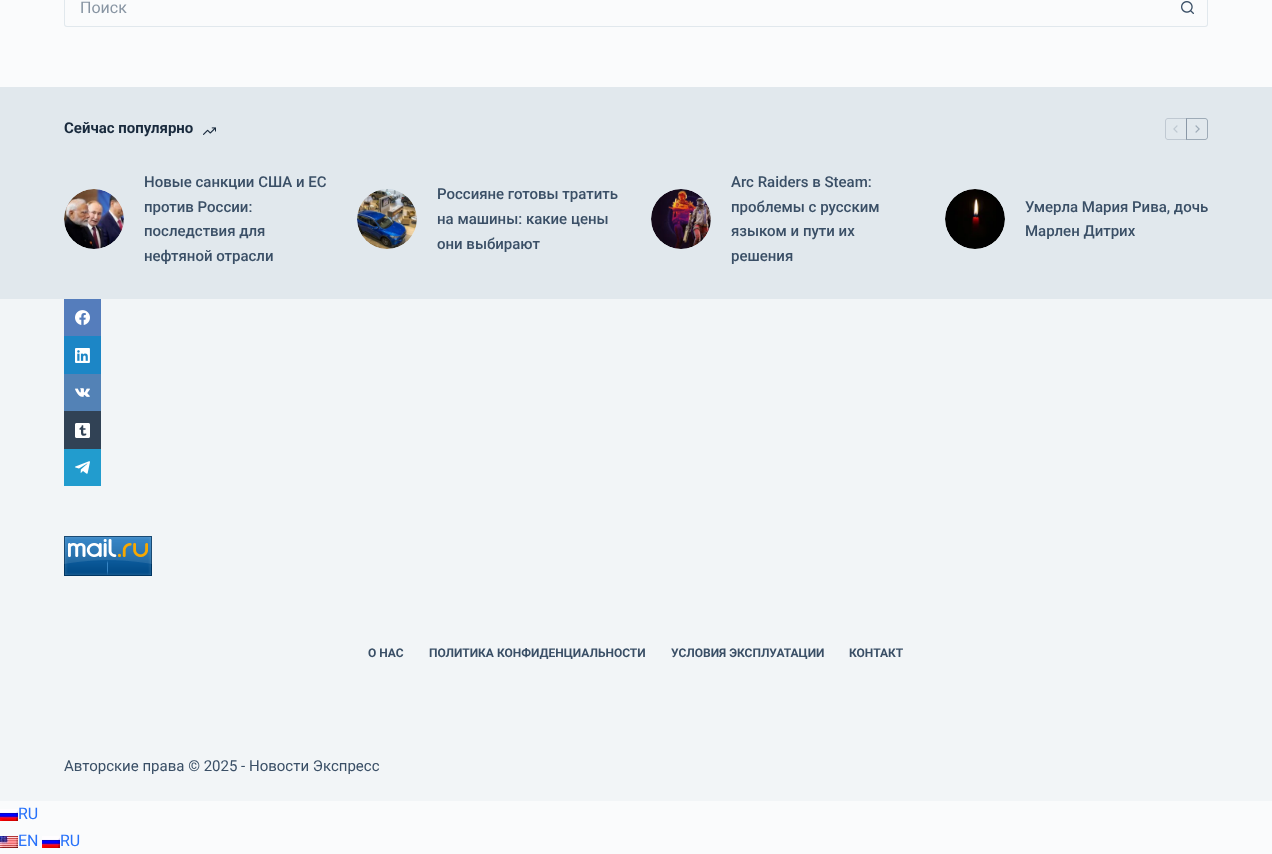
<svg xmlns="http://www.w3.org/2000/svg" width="1272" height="854">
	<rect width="100%" height="100%" fill="#FAFBFC" />
	<path d="M67-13H1168V27H67C65 27 64 26 64 24V-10C64-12 65-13 67-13ZM67-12H1168V26H67C66 26 65 25 65 24V-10C65-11 66-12 67-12Z" fill="#E1E8ED" fill-rule="evenodd" />
	<text x="80" y="13" font-family="Roboto" font-size="16" fill="#8794A2">Поиск</text>
	<path d="M1168-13H1205C1207-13 1208-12 1208-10V24C1208 26 1207 27 1205 27H1168ZM1168-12H1205C1206-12 1207-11 1207-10V24C1207 25 1206 26 1205 26H1168Z" fill="#E1E8ED" fill-rule="evenodd" />
	<image x="1181" y="1" width="13" height="13" href="assets/img1.png" />
	<rect x="0" y="87" width="1272" height="212" fill="#E1E8ED" />
	<text x="64" y="133" font-family="Roboto" font-size="15" font-weight="700" fill="#192A3D">Сейчас популярно</text>
	<image x="203" y="127" width="13" height="8" href="assets/img2.png" />
	<path d="M1168 118.5H1186.5V139.5H1168C1166.5 139.5 1165.5 138.5 1165.5 137V121C1165.5 119.5 1166.5 118.5 1168 118.5Z" fill="none" stroke="#C0C9D2" />
	<image x="1173" y="125" width="5" height="8" href="assets/img3.png" />
	<path d="M1186.5 118.5H1205C1206.5 118.5 1207.5 119.5 1207.5 121V137C1207.5 138.5 1206.5 139.5 1205 139.5H1186.5Z" fill="none" stroke="#3A4F66" stroke-opacity="0.4" />
	<image x="1195" y="125" width="5" height="8" href="assets/img4.png" />
	<image x="64" y="189" width="60" height="60" href="assets/img5.png" />
	<g font-family="Roboto" font-size="15" font-weight="500" fill="#3A4F66">
		<text x="144" y="187">Новые санкции США и ЕС</text>
		<text x="144" y="212">против России:</text>
		<text x="144" y="236">последствия для</text>
		<text x="144" y="261">нефтяной отрасли</text>
	</g>
	<image x="357" y="189" width="60" height="60" href="assets/img6.png" />
	<g font-family="Roboto" font-size="15" font-weight="500" fill="#3A4F66">
		<text x="437" y="199">Россияне готовы тратить</text>
		<text x="437" y="224">на машины: какие цены</text>
		<text x="437" y="249">они выбирают</text>
	</g>
	<image x="651" y="189" width="60" height="60" href="assets/img7.png" />
	<g font-family="Roboto" font-size="15" font-weight="500" fill="#3A4F66">
		<text x="731" y="187">Arc Raiders в Steam:</text>
		<text x="731" y="212">проблемы с русским</text>
		<text x="731" y="236">языком и пути их</text>
		<text x="731" y="261">решения</text>
	</g>
	<image x="945" y="189" width="60" height="60" href="assets/img8.png" />
	<g font-family="Roboto" font-size="15" font-weight="500" fill="#3A4F66">
		<text x="1025" y="212">Умерла Мария Рива, дочь</text>
		<text x="1025" y="236">Марлен Дитрих</text>
	</g>
	<rect x="0" y="299" width="1272" height="502" fill="#F2F5F7" />
	<rect x="64" y="299" width="37" height="37" fill="#557DBC" />
	<image x="75" y="310" width="15" height="15" href="assets/img9.png" />
	<rect x="64" y="336" width="37" height="38" fill="#1C86C6" />
	<image x="75" y="348" width="15" height="15" href="assets/img10.png" />
	<rect x="64" y="374" width="37" height="37" fill="#5382B6" />
	<image x="75" y="388" width="15" height="9" href="assets/img11.png" />
	<rect x="64" y="411" width="37" height="38" fill="#314255" />
	<image x="75" y="423" width="15" height="15" href="assets/img12.png" />
	<rect x="64" y="449" width="37" height="37" fill="#229CCE" />
	<image x="75" y="461" width="15" height="13" href="assets/img13.png" />
	<image x="64" y="536" width="88" height="40" href="assets/img14.png" />
	<g font-family="Roboto" font-size="12" font-weight="700" fill="#3A4F66">
		<text x="368" y="657">О НАС</text>
		<text x="429" y="657">ПОЛИТИКА КОНФИДЕНЦИАЛЬНОСТИ</text>
		<text x="671" y="657">УСЛОВИЯ ЭКСПЛУАТАЦИИ</text>
		<text x="849" y="657">КОНТАКТ</text>
	</g>
	<text x="64" y="771" font-family="Roboto" font-size="15" fill="#3A4F66">Авторские права © 2025 - Новости Экспресс</text>
	<image x="0" y="809" width="18" height="12" href="assets/img15.png" />
	<text x="18" y="819" font-family="Roboto" font-size="16" fill="#2872FA">RU</text>
	<image x="0" y="836" width="18" height="12" href="assets/img16.png" />
	<text x="18" y="846" font-family="Roboto" font-size="16" fill="#2872FA">EN</text>
	<image x="42" y="836" width="18" height="12" href="assets/img15.png" />
	<text x="60" y="846" font-family="Roboto" font-size="16" fill="#2872FA">RU</text>
</svg>
